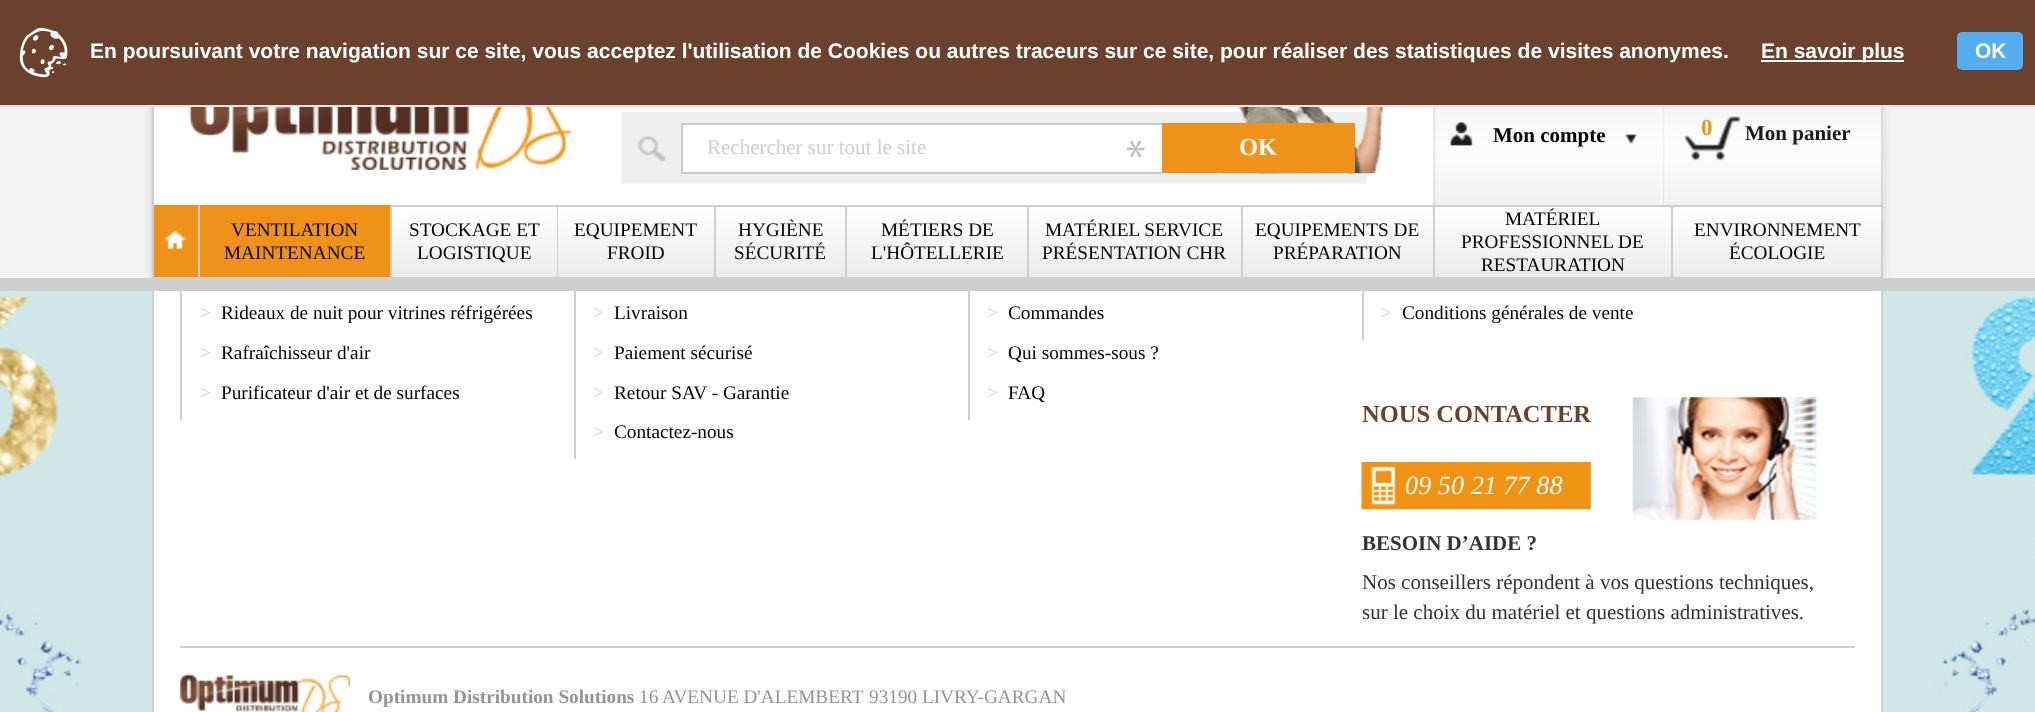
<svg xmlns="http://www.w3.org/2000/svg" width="2035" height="712">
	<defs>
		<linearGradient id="g1" gradientUnits="userSpaceOnUse" x1="474" y1="207" x2="474" y2="277"><stop offset="0" stop-color="#FFFFFF" /><stop offset="1" stop-color="#EBEBEB" /></linearGradient>
		<linearGradient id="g2" gradientUnits="userSpaceOnUse" x1="636" y1="207" x2="636" y2="277"><stop offset="0" stop-color="#FFFFFF" /><stop offset="1" stop-color="#EBEBEB" /></linearGradient>
		<linearGradient id="g3" gradientUnits="userSpaceOnUse" x1="781" y1="207" x2="781" y2="277"><stop offset="0" stop-color="#FFFFFF" /><stop offset="1" stop-color="#EBEBEB" /></linearGradient>
		<linearGradient id="g4" gradientUnits="userSpaceOnUse" x1="937" y1="207" x2="937" y2="277"><stop offset="0" stop-color="#FFFFFF" /><stop offset="1" stop-color="#EBEBEB" /></linearGradient>
		<linearGradient id="g5" gradientUnits="userSpaceOnUse" x1="1135" y1="207" x2="1135" y2="277"><stop offset="0" stop-color="#FFFFFF" /><stop offset="1" stop-color="#EBEBEB" /></linearGradient>
		<linearGradient id="g6" gradientUnits="userSpaceOnUse" x1="1338" y1="207" x2="1338" y2="277"><stop offset="0" stop-color="#FFFFFF" /><stop offset="1" stop-color="#EBEBEB" /></linearGradient>
		<linearGradient id="g7" gradientUnits="userSpaceOnUse" x1="1553" y1="207" x2="1553" y2="277"><stop offset="0" stop-color="#FFFFFF" /><stop offset="1" stop-color="#EBEBEB" /></linearGradient>
		<linearGradient id="g8" gradientUnits="userSpaceOnUse" x1="1777" y1="207" x2="1777" y2="277"><stop offset="0" stop-color="#FFFFFF" /><stop offset="1" stop-color="#EBEBEB" /></linearGradient>
	</defs>
	<rect width="100%" height="100%" fill="#FFFFFF" />
	<image x="0" y="291" width="2035" height="421" href="assets/img1.png" />
	<rect x="0" y="107" width="2035" height="171" fill="#F3F3F3" />
	<rect x="0" y="278" width="2035" height="13" fill="#CFCFCF" />
	<rect x="154" y="291" width="1727" height="421" fill="#FFFFFF" />
	<rect x="1881" y="291" width="2" height="421" fill="#CFCFCF" />
	<rect x="152" y="291" width="2" height="421" fill="#CFCFCF" />
	<rect x="180" y="291" width="2" height="129" fill="#CFCFCF" />
	<rect x="574" y="291" width="2" height="168" fill="#CFCFCF" />
	<rect x="968" y="291" width="2" height="129" fill="#CFCFCF" />
	<rect x="1362" y="291" width="2" height="49" fill="#CFCFCF" />
	<rect x="152" y="26" width="1731" height="252" fill="#CFCFCF" filter="blur(4.5px)" />
	<rect x="154" y="107" width="1727" height="98" fill="#FFFFFF" />
	<rect x="153" y="27" width="1729" height="250" fill="none" stroke="#CFCFCF" stroke-width="2" />
	<rect x="0" y="0" width="2035" height="105" fill="#6B412E" />
	<rect x="0" y="105" width="2035" height="2" fill="#E4E4E4" />
	<image x="19" y="27" width="49" height="51" href="assets/img2.png" />
	<text x="90" y="58" font-family="Liberation Sans" font-size="21" font-weight="700" fill="#FFFFFF">En poursuivant votre navigation sur ce site, vous acceptez l'utilisation de Cookies ou autres traceurs sur ce site, pour réaliser des statistiques de visites anonymes.</text>
	<rect x="1761" y="60" width="143" height="2" fill="#FFFFFF" />
	<text x="1761" y="58" font-family="Liberation Sans" font-size="21" font-weight="700" fill="#FFFFFF">En savoir plus</text>
	<rect x="1957" y="32" width="66" height="38" rx="5" fill="#55ACEE" />
	<text x="1975" y="58" font-family="Liberation Sans" font-size="21" font-weight="700" fill="#FFFFFF">OK</text>
	<image x="189" y="107" width="384" height="63" href="assets/img3.png" />
	<image x="621" y="112" width="746" height="72" href="assets/img4.png" />
	<rect x="683" y="125" width="479" height="47" fill="#FFFFFF" />
	<image x="1127" y="140" width="18" height="18" href="assets/img5.png" />
	<rect x="681" y="123" width="481" height="2" fill="#C9C9C9" />
	<rect x="681" y="172" width="481" height="2" fill="#C9C9C9" />
	<rect x="681" y="123" width="2" height="50" fill="#C9C9C9" />
	<text x="707" y="154" font-family="Liberation Serif" font-size="21" fill="#CFCFCF">Rechercher sur tout le site</text>
	<image x="1221" y="107" width="164" height="67" href="assets/img6.png" />
	<rect x="1162" y="123" width="193" height="50" fill="#F09219" />
	<text x="1239" y="155" font-family="Liberation Serif" font-size="24.5" font-weight="700" fill="#FFFFFF">OK</text>
	<image x="1433" y="107" width="228" height="98" href="assets/img7.png" />
	<text x="1493" y="142" font-family="Liberation Serif" font-size="21" font-weight="700" fill="#000000">Mon compte</text>
	<image x="1662" y="107" width="222" height="112" href="assets/img8.png" />
	<text x="1701" y="135" font-family="Liberation Serif" font-size="23" font-weight="700" fill="#F09219">0</text>
	<text x="1745" y="140" font-family="Liberation Serif" font-size="21" font-weight="700" fill="#1A1A1A">Mon panier</text>
	<rect x="154" y="205" width="44" height="72" fill="#F09219" />
	<rect x="198" y="271" width="2" height="6" fill="#CFCFCF" />
	<image x="164" y="230" width="23" height="21" href="assets/img9.png" />
	<rect x="200" y="205" width="190" height="72" fill="#F09219" />
	<rect x="390" y="271" width="2" height="6" fill="#CFCFCF" />
	<g font-family="Liberation Serif" font-size="19.25" fill="#000000">
		<text x="231" y="236">VENTILATION</text>
		<text x="224" y="259">MAINTENANCE</text>
	</g>
	<rect x="392" y="207" width="165" height="70" fill="url(#g1)" />
	<rect x="557" y="271" width="1" height="6" fill="#CFCFCF" />
	<g font-family="Liberation Serif" font-size="19.25" fill="#000000">
		<text x="409" y="236">STOCKAGE ET</text>
		<text x="417" y="259">LOGISTIQUE</text>
	</g>
	<rect x="558" y="207" width="156" height="70" fill="url(#g2)" />
	<rect x="714" y="271" width="2" height="6" fill="#CFCFCF" />
	<g font-family="Liberation Serif" font-size="19.25" fill="#000000">
		<text x="574" y="236">EQUIPEMENT</text>
		<text x="607" y="259">FROID</text>
	</g>
	<rect x="716" y="207" width="129" height="70" fill="url(#g3)" />
	<rect x="845" y="271" width="2" height="6" fill="#CFCFCF" />
	<g font-family="Liberation Serif" font-size="19.25" fill="#000000">
		<text x="738" y="236">HYGIÈNE</text>
		<text x="734" y="259">SÉCURITÉ</text>
	</g>
	<rect x="847" y="207" width="180" height="70" fill="url(#g4)" />
	<rect x="1027" y="271" width="2" height="6" fill="#CFCFCF" />
	<g font-family="Liberation Serif" font-size="19.25" fill="#000000">
		<text x="881" y="236">MÉTIERS DE</text>
		<text x="871" y="259">L'HÔTELLERIE</text>
	</g>
	<rect x="1029" y="207" width="212" height="70" fill="url(#g5)" />
	<rect x="1241" y="271" width="2" height="6" fill="#CFCFCF" />
	<g font-family="Liberation Serif" font-size="19.25" fill="#000000">
		<text x="1045" y="236">MATÉRIEL SERVICE</text>
		<text x="1042" y="259">PRÉSENTATION CHR</text>
	</g>
	<rect x="1243" y="207" width="190" height="70" fill="url(#g6)" />
	<rect x="1433" y="271" width="2" height="6" fill="#CFCFCF" />
	<g font-family="Liberation Serif" font-size="19.25" fill="#000000">
		<text x="1255" y="236">EQUIPEMENTS DE</text>
		<text x="1273" y="259">PRÉPARATION</text>
	</g>
	<rect x="1435" y="207" width="236" height="70" fill="url(#g7)" />
	<rect x="1663" y="205" width="218" height="2" fill="#CFCFCF" />
	<rect x="1671" y="205" width="2" height="72" fill="#CFCFCF" />
	<g font-family="Liberation Serif" font-size="19.25" fill="#000000">
		<text x="1505" y="225">MATÉRIEL</text>
		<text x="1461" y="248">PROFESSIONNEL DE</text>
		<text x="1481" y="271">RESTAURATION</text>
	</g>
	<rect x="1673" y="207" width="208" height="70" fill="url(#g8)" />
	<g font-family="Liberation Serif" font-size="19.25" fill="#000000">
		<text x="1694" y="236">ENVIRONNEMENT</text>
		<text x="1729" y="259">ÉCOLOGIE</text>
	</g>
	<text x="200" y="319" font-family="Liberation Serif" font-size="19.25" fill="#CFCFCF">&gt;</text>
	<text x="221" y="319" font-family="Liberation Serif" font-size="19.25" fill="#000000">Rideaux de nuit pour vitrines réfrigérées</text>
	<text x="200" y="359" font-family="Liberation Serif" font-size="19.25" fill="#CFCFCF">&gt;</text>
	<text x="221" y="359" font-family="Liberation Serif" font-size="19.25" fill="#000000">Rafraîchisseur d'air</text>
	<text x="200" y="399" font-family="Liberation Serif" font-size="19.25" fill="#CFCFCF">&gt;</text>
	<text x="221" y="399" font-family="Liberation Serif" font-size="19.25" fill="#000000">Purificateur d'air et de surfaces</text>
	<text x="593" y="319" font-family="Liberation Serif" font-size="19.25" fill="#CFCFCF">&gt;</text>
	<text x="614" y="319" font-family="Liberation Serif" font-size="19.25" fill="#000000">Livraison</text>
	<text x="593" y="359" font-family="Liberation Serif" font-size="19.25" fill="#CFCFCF">&gt;</text>
	<text x="614" y="359" font-family="Liberation Serif" font-size="19.25" fill="#000000">Paiement sécurisé</text>
	<text x="593" y="399" font-family="Liberation Serif" font-size="19.25" fill="#CFCFCF">&gt;</text>
	<text x="614" y="399" font-family="Liberation Serif" font-size="19.25" fill="#000000">Retour SAV - Garantie</text>
	<text x="593" y="438" font-family="Liberation Serif" font-size="19.25" fill="#CFCFCF">&gt;</text>
	<text x="614" y="438" font-family="Liberation Serif" font-size="19.25" fill="#000000">Contactez-nous</text>
	<text x="987" y="319" font-family="Liberation Serif" font-size="19.25" fill="#CFCFCF">&gt;</text>
	<text x="1008" y="319" font-family="Liberation Serif" font-size="19.25" fill="#000000">Commandes</text>
	<text x="987" y="359" font-family="Liberation Serif" font-size="19.25" fill="#CFCFCF">&gt;</text>
	<text x="1008" y="359" font-family="Liberation Serif" font-size="19.25" fill="#000000">Qui sommes-sous ?</text>
	<text x="987" y="399" font-family="Liberation Serif" font-size="19.25" fill="#CFCFCF">&gt;</text>
	<text x="1008" y="399" font-family="Liberation Serif" font-size="19.25" fill="#000000">FAQ</text>
	<text x="1381" y="319" font-family="Liberation Serif" font-size="19.25" fill="#CFCFCF">&gt;</text>
	<text x="1402" y="319" font-family="Liberation Serif" font-size="19.25" fill="#000000">Conditions générales de vente</text>
	<text x="1362" y="422" font-family="Liberation Serif" font-size="24.5" font-weight="700" fill="#6B412E">NOUS CONTACTER</text>
	<image x="1361" y="462" width="230" height="48" href="assets/img10.png" />
	<text x="1405" y="494" font-family="Liberation Serif" font-size="26.25" font-style="italic" fill="#FFFFFF">09 50 21 77 88</text>
	<image x="1632" y="397" width="185" height="123" href="assets/img11.png" />
	<text x="1362" y="550" font-family="Liberation Serif" font-size="21" font-weight="700" fill="#333333">BESOIN D’AIDE ?</text>
	<g font-family="Liberation Serif" font-size="21" fill="#333333">
		<text x="1362" y="589">Nos conseillers répondent à vos questions techniques,</text>
		<text x="1362" y="619">sur le choix du matériel et questions administratives.</text>
	</g>
	<rect x="180" y="646" width="1675" height="2" fill="#CFCFCF" />
	<image x="180" y="673" width="170" height="39" href="assets/img12.png" />
	<text x="368" y="703" font-family="Liberation Serif" font-size="19.25" font-weight="700" fill="#949494">Optimum Distribution Solutions</text>
	<g font-family="Liberation Serif" font-size="19.25" fill="#949494">
		<text x="639" y="703">16 AVENUE D'ALEMBERT</text>
		<text x="869" y="703">93190 LIVRY-GARGAN</text>
	</g>
</svg>
